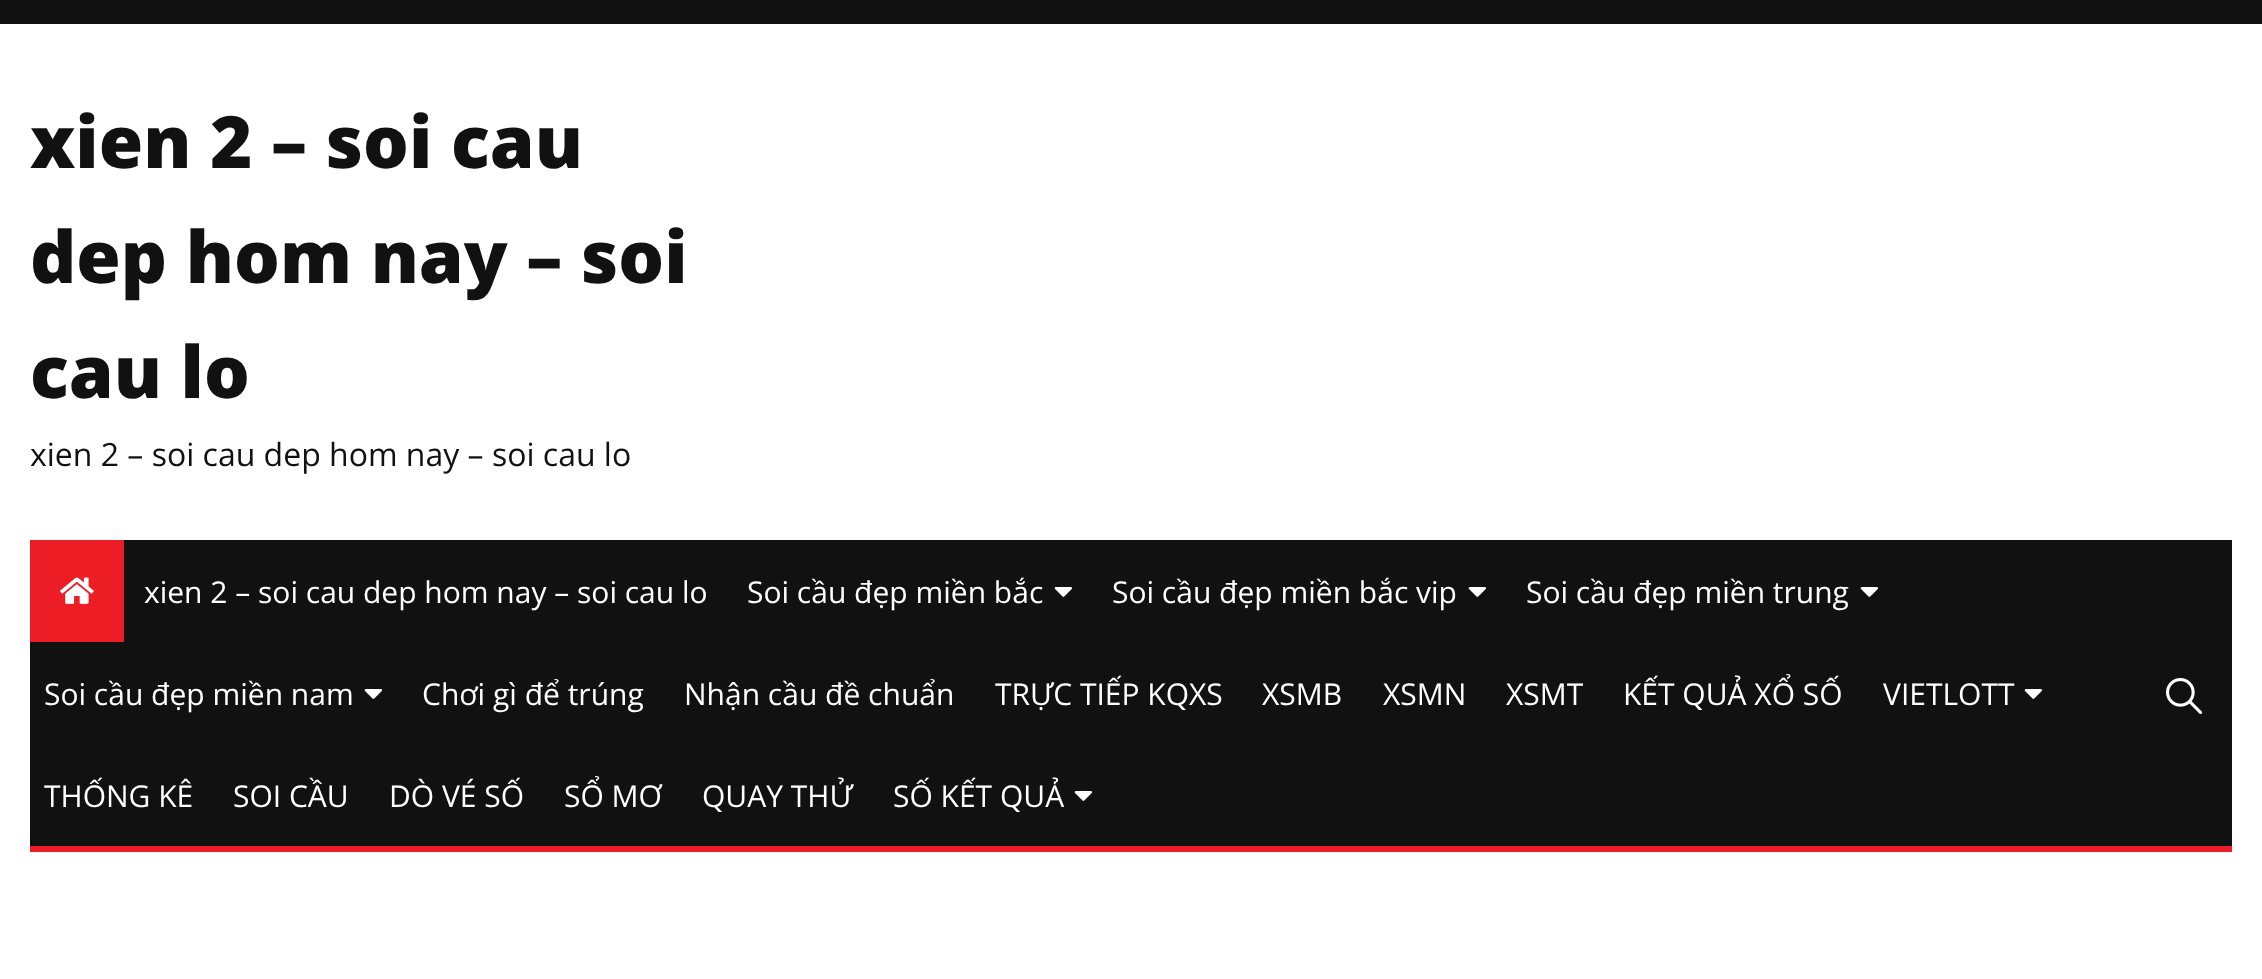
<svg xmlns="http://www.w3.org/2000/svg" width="2262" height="979">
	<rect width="100%" height="100%" fill="#FFFFFF" />
	<rect x="0" y="0" width="2262" height="24" fill="#111111" />
	<g font-family="Open Sans" font-size="72" font-weight="800" fill="#111111">
		<text x="30" y="168">xien 2 – soi cau</text>
		<text x="30" y="283">dep hom nay – soi</text>
		<text x="30" y="398">cau lo</text>
	</g>
	<text x="30" y="466" font-family="Open Sans" font-size="32" fill="#111111">xien 2 – soi cau dep hom nay – soi cau lo</text>
	<rect x="30" y="540" width="2202" height="306" fill="#111111" />
	<rect x="30" y="846" width="2202" height="6" fill="#ED1D25" />
	<rect x="30" y="540" width="94" height="102" fill="#ED1D25" />
	<image x="60" y="577" width="34" height="27" href="assets/img1.png" />
	<g font-family="Open Sans" font-size="30" fill="#FFFFFF">
		<text x="144" y="603">xien 2 – soi cau dep hom nay – soi cau lo</text>
		<text x="747" y="603">Soi cầu đẹp miền bắc</text>
	</g>
	<image x="1054" y="587" width="19" height="10" href="assets/img2.png" />
	<text x="1112" y="603" font-family="Open Sans" font-size="30" fill="#FFFFFF">Soi cầu đẹp miền bắc vip</text>
	<image x="1468" y="587" width="19" height="10" href="assets/img2.png" />
	<text x="1526" y="603" font-family="Open Sans" font-size="30" fill="#FFFFFF">Soi cầu đẹp miền trung</text>
	<image x="1860" y="587" width="19" height="10" href="assets/img2.png" />
	<text x="44" y="705" font-family="Open Sans" font-size="30" fill="#FFFFFF">Soi cầu đẹp miền nam</text>
	<image x="364" y="689" width="19" height="10" href="assets/img2.png" />
	<g font-family="Open Sans" font-size="30" fill="#FFFFFF">
		<text x="422" y="705">Chơi gì để trúng</text>
		<text x="684" y="705">Nhận cầu đề chuẩn</text>
		<text x="995" y="705">TRỰC TIẾP KQXS</text>
		<text x="1262" y="705">XSMB</text>
		<text x="1383" y="705">XSMN</text>
		<text x="1506" y="705">XSMT</text>
		<text x="1623" y="705">KẾT QUẢ XỔ SỐ</text>
		<text x="1883" y="705">VIETLOTT</text>
	</g>
	<image x="2024" y="689" width="19" height="10" href="assets/img2.png" />
	<g font-family="Open Sans" font-size="30" fill="#FFFFFF">
		<text x="44" y="807">THỐNG KÊ</text>
		<text x="233" y="807">SOI CẦU</text>
		<text x="389" y="807">DÒ VÉ SỐ</text>
		<text x="564" y="807">SỔ MƠ</text>
		<text x="702" y="807">QUAY THỬ</text>
		<text x="893" y="807">SỐ KẾT QUẢ</text>
	</g>
	<image x="1074" y="791" width="19" height="10" href="assets/img2.png" />
	<image x="2166" y="678" width="37" height="36" href="assets/img3.png" />
</svg>
